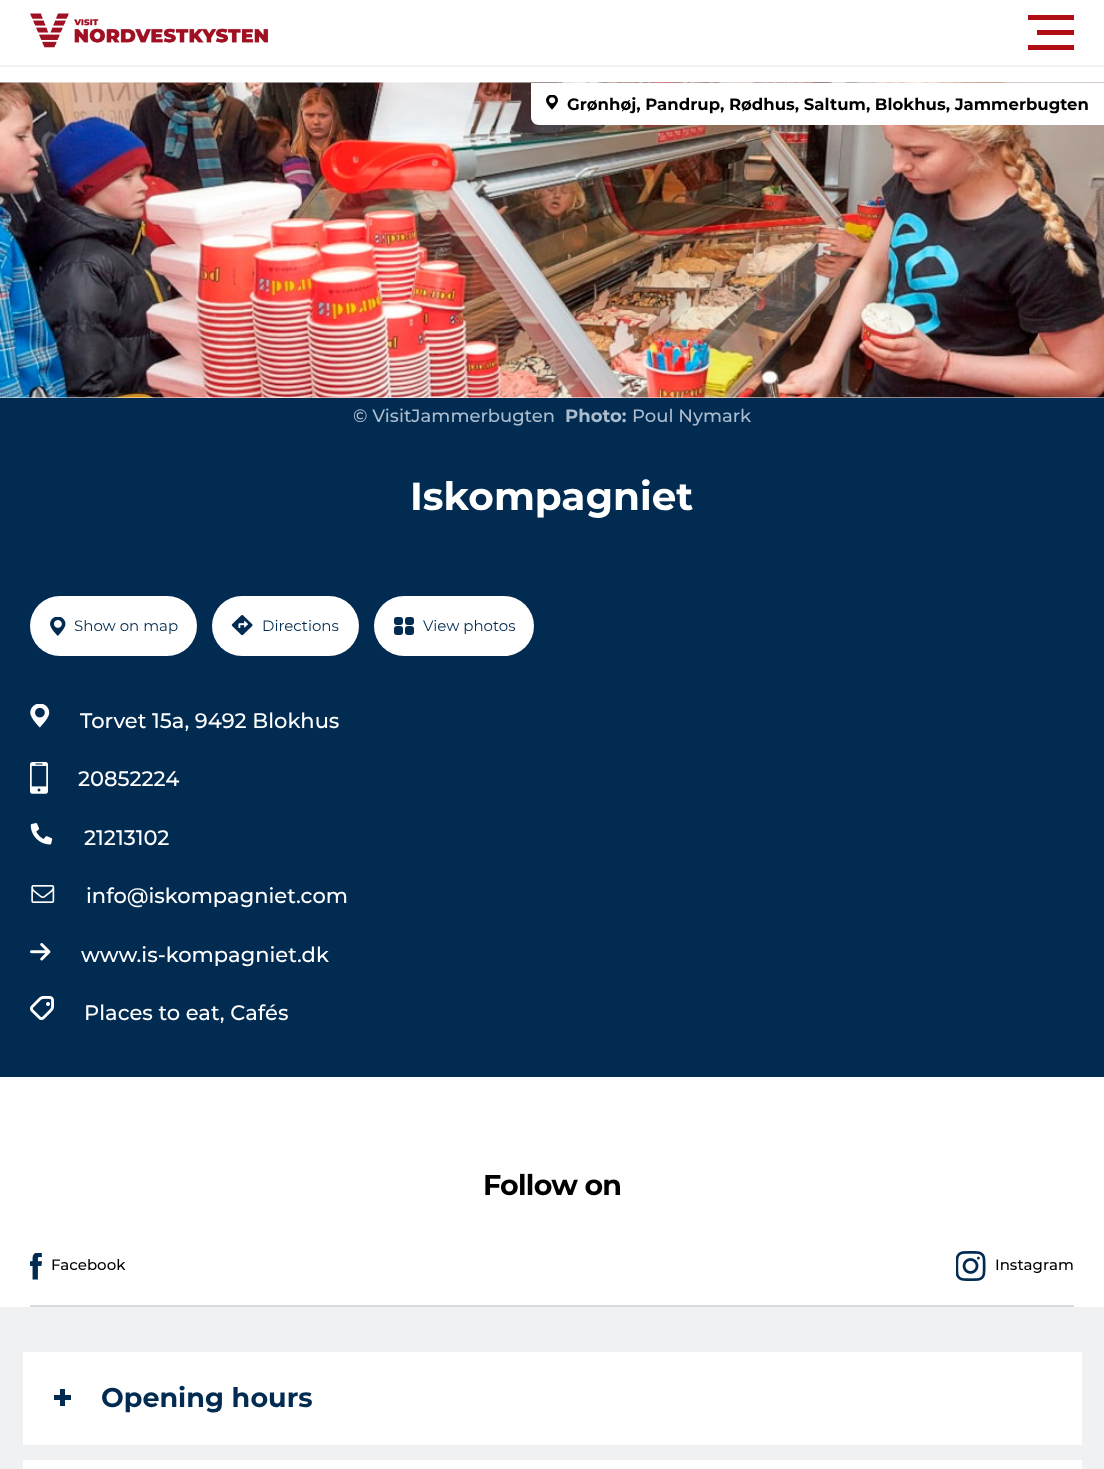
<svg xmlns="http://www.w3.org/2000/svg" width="1104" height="1469">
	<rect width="100%" height="100%" fill="#FFFFFF" />
	<rect x="0" y="65" width="1104" height="2" fill="#F0F1F3" />
	<image x="30" y="13" width="239" height="35" href="assets/img1.png" />
	<rect x="1028" y="15" width="46" height="5" fill="#B00E14" />
	<rect x="1037" y="30" width="37" height="5" fill="#B00E14" />
	<rect x="1028" y="45" width="46" height="5" fill="#B00E14" />
	<image x="0" y="82" width="1104" height="316" href="assets/img2.png" />
	<path d="M531 83H1104V125H539C534.5 125 531 121.5 531 117Z" fill="#FFFFFF" />
	<image x="546" y="95" width="12" height="15" href="assets/img3.png" />
	<text x="567" y="110" font-family="Montserrat" font-size="16.5" font-weight="700" fill="#000000">Grønhøj, Pandrup, Rødhus, Saltum, Blokhus, Jammerbugten</text>
	<rect x="0" y="398" width="1104" height="679" fill="#022B52" />
	<text x="353" y="422" font-family="Montserrat" font-size="18" font-weight="500" fill="#AABCCD">© VisitJammerbugten</text>
	<text x="565" y="422" font-family="Montserrat" font-size="18" font-weight="700" fill="#AABCCD">Photo:</text>
	<text x="632" y="422" font-family="Montserrat" font-size="18" font-weight="500" fill="#AABCCD">Poul Nymark</text>
	<text x="410" y="510" font-family="Montserrat" font-size="39" font-weight="700" fill="#FFFFFF">Iskompagniet</text>
	<rect x="30" y="596" width="167" height="60" rx="30" fill="#FFFFFF" />
	<image x="50" y="617" width="16" height="19" href="assets/img4.png" />
	<text x="74" y="631" font-family="Montserrat" font-size="15" fill="#022B52">Show on map</text>
	<rect x="212" y="596" width="147" height="60" rx="30" fill="#FFFFFF" />
	<image x="231" y="615" width="22" height="21" href="assets/img5.png" />
	<text x="262" y="631" font-family="Montserrat" font-size="15" fill="#022B52">Directions</text>
	<rect x="374" y="596" width="160" height="60" rx="30" fill="#FFFFFF" />
	<rect x="405" y="617" width="9" height="8" rx="3" fill="#022B52" />
	<rect x="405" y="626" width="9" height="9" rx="3" fill="#022B52" />
	<rect x="394" y="617" width="9" height="8" rx="3" fill="#022B52" />
	<rect x="394" y="626" width="9" height="9" rx="3" fill="#022B52" />
	<text x="423" y="631" font-family="Montserrat" font-size="15" fill="#022B52">View photos</text>
	<image x="30" y="704" width="20" height="24" href="assets/img6.png" />
	<text x="80" y="728" font-family="Montserrat" font-size="21" font-weight="500" fill="#FFFFFF">Torvet 15a, 9492 Blokhus</text>
	<image x="30" y="762" width="18" height="32" href="assets/img7.png" />
	<text x="78" y="786" font-family="Montserrat" font-size="21" font-weight="500" fill="#FFFFFF">20852224</text>
	<image x="30" y="823" width="23" height="22" href="assets/img8.png" />
	<text x="84" y="845" font-family="Montserrat" font-size="21" font-weight="500" fill="#FFFFFF">21213102</text>
	<image x="31" y="885" width="24" height="18" href="assets/img9.png" />
	<text x="86" y="903" font-family="Montserrat" font-size="21" font-weight="500" fill="#FFFFFF">info@iskompagniet.com</text>
	<image x="30" y="943" width="21" height="18" href="assets/img10.png" />
	<text x="81" y="962" font-family="Montserrat" font-size="21" font-weight="500" fill="#FFFFFF">www.is-kompagniet.dk</text>
	<image x="30" y="996" width="24" height="24" href="assets/img11.png" />
	<text x="84" y="1020" font-family="Montserrat" font-size="21" font-weight="500" fill="#FFFFFF">Places to eat, Cafés</text>
	<rect x="30" y="1305" width="1044" height="2" fill="#D8DADC" />
	<text x="483" y="1195" font-family="Montserrat" font-size="28.5" font-weight="700" letter-spacing="-0.75" fill="#000000">Follow on</text>
	<image x="30" y="1253" width="12" height="27" href="assets/img12.png" />
	<text x="51" y="1270" font-family="Montserrat" font-size="15" font-weight="500" fill="#000000">Facebook</text>
	<image x="956" y="1251" width="30" height="30" href="assets/img13.png" />
	<text x="995" y="1270" font-family="Montserrat" font-size="15" font-weight="500" fill="#000000">Instagram</text>
	<rect x="0" y="1307" width="1104" height="162" fill="#EFF1F3" />
	<rect x="23" y="1352" width="1059" height="93" fill="#FFFFFF" />
	<rect x="54" y="1395" width="17" height="5" fill="#022B52" />
	<rect x="60" y="1389" width="5" height="17" fill="#022B52" />
	<text x="101" y="1407" font-family="Montserrat" font-size="27" font-weight="700" fill="#022B52">Opening hours</text>
	<rect x="23" y="1460" width="1059" height="9" fill="#FFFFFF" />
</svg>
